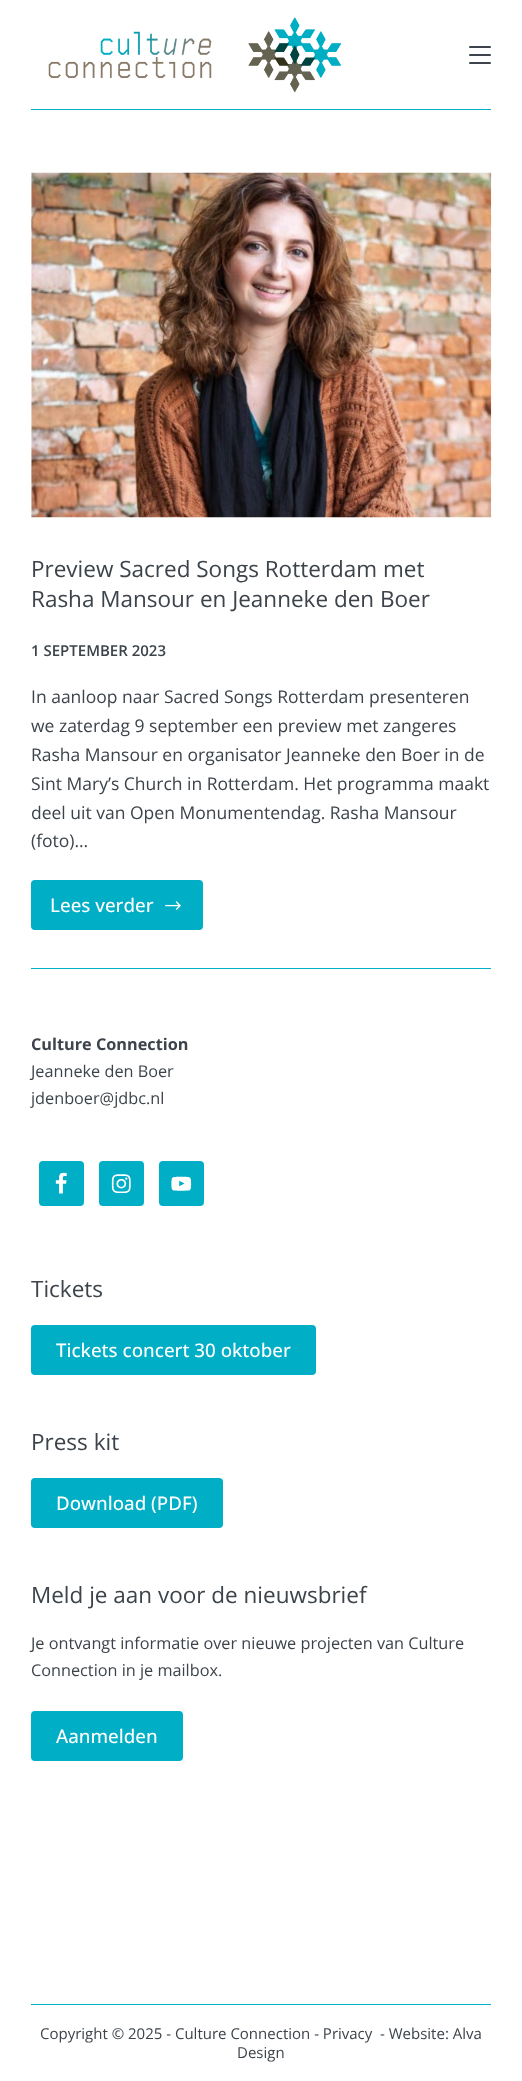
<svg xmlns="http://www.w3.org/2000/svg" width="522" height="2081">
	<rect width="100%" height="100%" fill="#FFFFFF" />
	<rect x="31" y="109" width="460" height="1" fill="#00AEC5" />
	<image x="48" y="17" width="293" height="76" href="assets/img1.png" />
	<rect x="469" y="46" width="22" height="2" rx="1" fill="#3C434A" />
	<rect x="469" y="54" width="22" height="2" rx="1" fill="#3C434A" />
	<rect x="469" y="62" width="22" height="2" rx="1" fill="#3C434A" />
	<rect x="31" y="968" width="460" height="1" fill="#00AEC5" />
	<image x="31" y="172" width="461" height="346" href="assets/img2.png" />
	<g font-family="Open Sans" font-size="22.5" fill="#3C434A">
		<text x="31" y="577">Preview Sacred Songs Rotterdam met</text>
		<text x="31" y="607">Rasha Mansour en Jeanneke den Boer</text>
	</g>
	<text x="31" y="656" font-family="Open Sans" font-size="15" font-weight="600" fill="#3C434A">1 SEPTEMBER 2023</text>
	<g font-family="Open Sans" font-size="17.5" fill="#3C434A">
		<text x="31" y="703">In aanloop naar Sacred Songs Rotterdam presenteren</text>
		<text x="31" y="732">we zaterdag 9 september een preview met zangeres</text>
		<text x="31" y="761">Rasha Mansour en organisator Jeanneke den Boer in de</text>
		<text x="31" y="790">Sint Mary’s Church in Rotterdam. Het programma maakt</text>
		<text x="31" y="819">deel uit van Open Monumentendag. Rasha Mansour</text>
		<text x="31" y="847">(foto)…</text>
	</g>
	<rect x="31" y="880" width="172" height="50" rx="4" fill="#00AEC5" />
	<text x="50" y="912" font-family="Open Sans" font-size="18.75" font-weight="500" fill="#FFFFFF">Lees verder</text>
	<image x="165" y="901" width="16" height="9" href="assets/img3.png" />
	<text x="31" y="1050" font-family="Open Sans" font-size="16.25" font-weight="700" fill="#3C434A">Culture Connection</text>
	<g font-family="Open Sans" font-size="16.25" fill="#3C434A">
		<text x="31" y="1077">Jeanneke den Boer</text>
		<text x="31" y="1104">jdenboer@jdbc.nl</text>
	</g>
	<rect x="39" y="1161" width="45" height="45" rx="4" fill="#00AEC5" />
	<image x="55" y="1172" width="12" height="22" href="assets/img4.png" />
	<rect x="99" y="1161" width="45" height="45" rx="4" fill="#00AEC5" />
	<image x="111" y="1174" width="20" height="19" href="assets/img5.png" />
	<rect x="159" y="1161" width="45" height="45" rx="4" fill="#00AEC5" />
	<image x="171" y="1176" width="21" height="15" href="assets/img6.png" />
	<text x="31" y="1297" font-family="Open Sans" font-size="22.5" fill="#3C434A">Tickets</text>
	<rect x="31" y="1325" width="285" height="50" rx="4" fill="#00AEC5" />
	<text x="56" y="1357" font-family="Open Sans" font-size="18.75" font-weight="500" fill="#FFFFFF">Tickets concert 30 oktober</text>
	<text x="31" y="1450" font-family="Open Sans" font-size="22.5" fill="#3C434A">Press kit</text>
	<rect x="31" y="1478" width="192" height="50" rx="4" fill="#00AEC5" />
	<text x="56" y="1510" font-family="Open Sans" font-size="18.75" font-weight="500" fill="#FFFFFF">Download (PDF)</text>
	<text x="31" y="1603" font-family="Open Sans" font-size="22.5" fill="#3C434A">Meld je aan voor de nieuwsbrief</text>
	<g font-family="Open Sans" font-size="16.25" fill="#3C434A">
		<text x="31" y="1649">Je ontvangt informatie over nieuwe projecten van Culture</text>
		<text x="31" y="1676">Connection in je mailbox.</text>
	</g>
	<rect x="31" y="1711" width="152" height="50" rx="4" fill="#00AEC5" />
	<text x="56" y="1743" font-family="Open Sans" font-size="18.75" font-weight="500" fill="#FFFFFF">Aanmelden</text>
	<rect x="31" y="2004" width="460" height="1" fill="#00AEC5" />
	<g font-family="Open Sans" font-size="15" fill="#3C434A">
		<text x="40" y="2039">Copyright © 2025 - Culture Connection - Privacy</text>
		<text x="380" y="2039">- Website: Alva</text>
		<text x="237" y="2058">Design</text>
	</g>
</svg>
